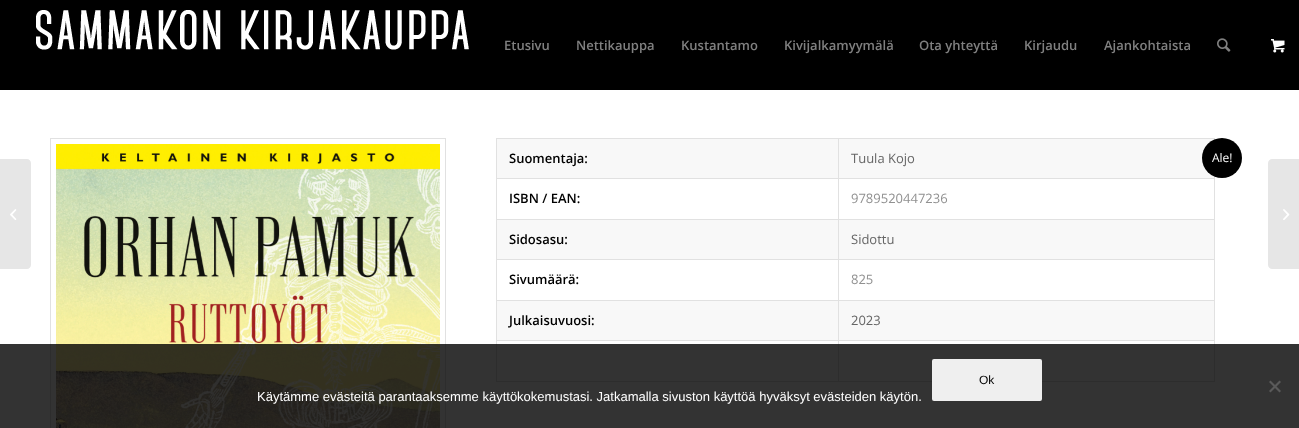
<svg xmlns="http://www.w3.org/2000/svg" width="1299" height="428">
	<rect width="100%" height="100%" fill="#FFFFFF" />
	<rect x="0" y="0" width="1299" height="90" fill="#000000" />
	<image x="36" y="10" width="433" height="40" href="assets/img1.png" />
	<g font-family="Open Sans" font-size="13" font-weight="600" fill="#808080">
		<text x="504" y="50">Etusivu</text>
		<text x="576" y="50">Nettikauppa</text>
		<text x="681" y="50">Kustantamo</text>
		<text x="784" y="50">Kivijalkamyymälä</text>
		<text x="919" y="50">Ota yhteyttä</text>
		<text x="1024" y="50">Kirjaudu</text>
		<text x="1104" y="50">Ajankohtaista</text>
	</g>
	<image x="1217" y="38" width="14" height="14" href="assets/img2.png" />
	<image x="1271" y="39" width="14" height="14" href="assets/img3.png" />
	<path d="M0 159H27C29 159 31 161 31 163V265C31 267 29 269 27 269H0Z" fill="#E6E6E6" />
	<image x="10" y="209" width="7" height="11" href="assets/img4.png" />
	<rect x="497" y="139" width="717" height="201" fill="#F8F8F8" />
	<rect x="496" y="138" width="719" height="1" fill="#E1E1E1" />
	<rect x="1214" y="178" width="1" height="204" fill="#E1E1E1" />
	<rect x="1214" y="138" width="1" height="41" fill="#E1E1E1" />
	<rect x="497" y="179" width="717" height="40" fill="#FFFFFF" />
	<rect x="497" y="260" width="717" height="40" fill="#FFFFFF" />
	<rect x="838" y="381" width="377" height="1" fill="#E1E1E1" />
	<rect x="838" y="340" width="1" height="42" fill="#E1E1E1" />
	<rect x="838" y="340" width="377" height="1" fill="#E1E1E1" />
	<rect x="838" y="300" width="1" height="41" fill="#E1E1E1" />
	<rect x="838" y="300" width="377" height="1" fill="#E1E1E1" />
	<rect x="838" y="259" width="1" height="42" fill="#E1E1E1" />
	<rect x="838" y="259" width="377" height="1" fill="#E1E1E1" />
	<rect x="838" y="219" width="1" height="41" fill="#E1E1E1" />
	<rect x="838" y="219" width="377" height="1" fill="#E1E1E1" />
	<rect x="838" y="178" width="1" height="42" fill="#E1E1E1" />
	<rect x="838" y="178" width="377" height="1" fill="#E1E1E1" />
	<rect x="838" y="138" width="1" height="41" fill="#E1E1E1" />
	<rect x="496" y="381" width="343" height="1" fill="#E1E1E1" />
	<rect x="496" y="340" width="1" height="42" fill="#E1E1E1" />
	<rect x="496" y="340" width="343" height="1" fill="#E1E1E1" />
	<rect x="496" y="300" width="1" height="41" fill="#E1E1E1" />
	<rect x="496" y="300" width="343" height="1" fill="#E1E1E1" />
	<rect x="496" y="259" width="1" height="42" fill="#E1E1E1" />
	<rect x="496" y="259" width="343" height="1" fill="#E1E1E1" />
	<rect x="496" y="219" width="1" height="41" fill="#E1E1E1" />
	<rect x="496" y="219" width="343" height="1" fill="#E1E1E1" />
	<rect x="496" y="178" width="1" height="42" fill="#E1E1E1" />
	<rect x="496" y="178" width="343" height="1" fill="#E1E1E1" />
	<rect x="496" y="138" width="1" height="41" fill="#E1E1E1" />
	<text x="509" y="163" font-family="Open Sans" font-size="13" font-weight="600" fill="#000000">Suomentaja:</text>
	<text x="851" y="163" font-family="Open Sans" font-size="13" fill="#666666">Tuula Kojo</text>
	<text x="509" y="203" font-family="Open Sans" font-size="13" font-weight="600" fill="#000000">ISBN / EAN:</text>
	<text x="851" y="203" font-family="Open Sans" font-size="13" fill="#919191">9789520447236</text>
	<text x="509" y="244" font-family="Open Sans" font-size="13" font-weight="600" fill="#000000">Sidosasu:</text>
	<text x="851" y="244" font-family="Open Sans" font-size="13" fill="#666666">Sidottu</text>
	<text x="509" y="284" font-family="Open Sans" font-size="13" font-weight="600" fill="#000000">Sivumäärä:</text>
	<text x="851" y="284" font-family="Open Sans" font-size="13" fill="#919191">825</text>
	<text x="509" y="325" font-family="Open Sans" font-size="13" font-weight="600" fill="#000000">Julkaisuvuosi:</text>
	<text x="851" y="325" font-family="Open Sans" font-size="13" fill="#666666">2023</text>
	<rect x="50.5" y="138.5" width="395" height="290" fill="none" stroke="#E1E1E1" />
	<image x="56" y="144" width="384" height="284" href="assets/img5.png" />
	<circle cx="1222" cy="158" r="20" fill="#000000" />
	<text x="1212" y="162" font-family="Open Sans" font-size="12" fill="#FFFFFF">Ale!</text>
	<path d="M1272 159H1299V269H1272C1270 269 1268 267 1268 265V163C1268 161 1270 159 1272 159Z" fill="#E6E6E6" />
	<image x="1283" y="209" width="7" height="11" href="assets/img6.png" />
	<rect x="0" y="344" width="1299" height="84" fill="#000000" fill-opacity="0.8" />
	<rect x="932" y="359" width="110" height="42" rx="2" fill="#EFEFEF" />
	<text x="979" y="384" font-family="Liberation Sans" font-size="12" fill="#000000">Ok</text>
	<path d="M1279.5 380.5L1281 382L1270.5 392.5L1269 391Z" fill="#5A5A5A" />
	<path d="M1269 382L1270.5 380.5L1281 391L1279.5 392.5Z" fill="#5A5A5A" />
	<text x="257" y="401" font-family="Liberation Sans" font-size="13" fill="#FFFFFF">Käytämme evästeitä parantaaksemme käyttökokemustasi. Jatkamalla sivuston käyttöä hyväksyt evästeiden käytön.</text>
</svg>
